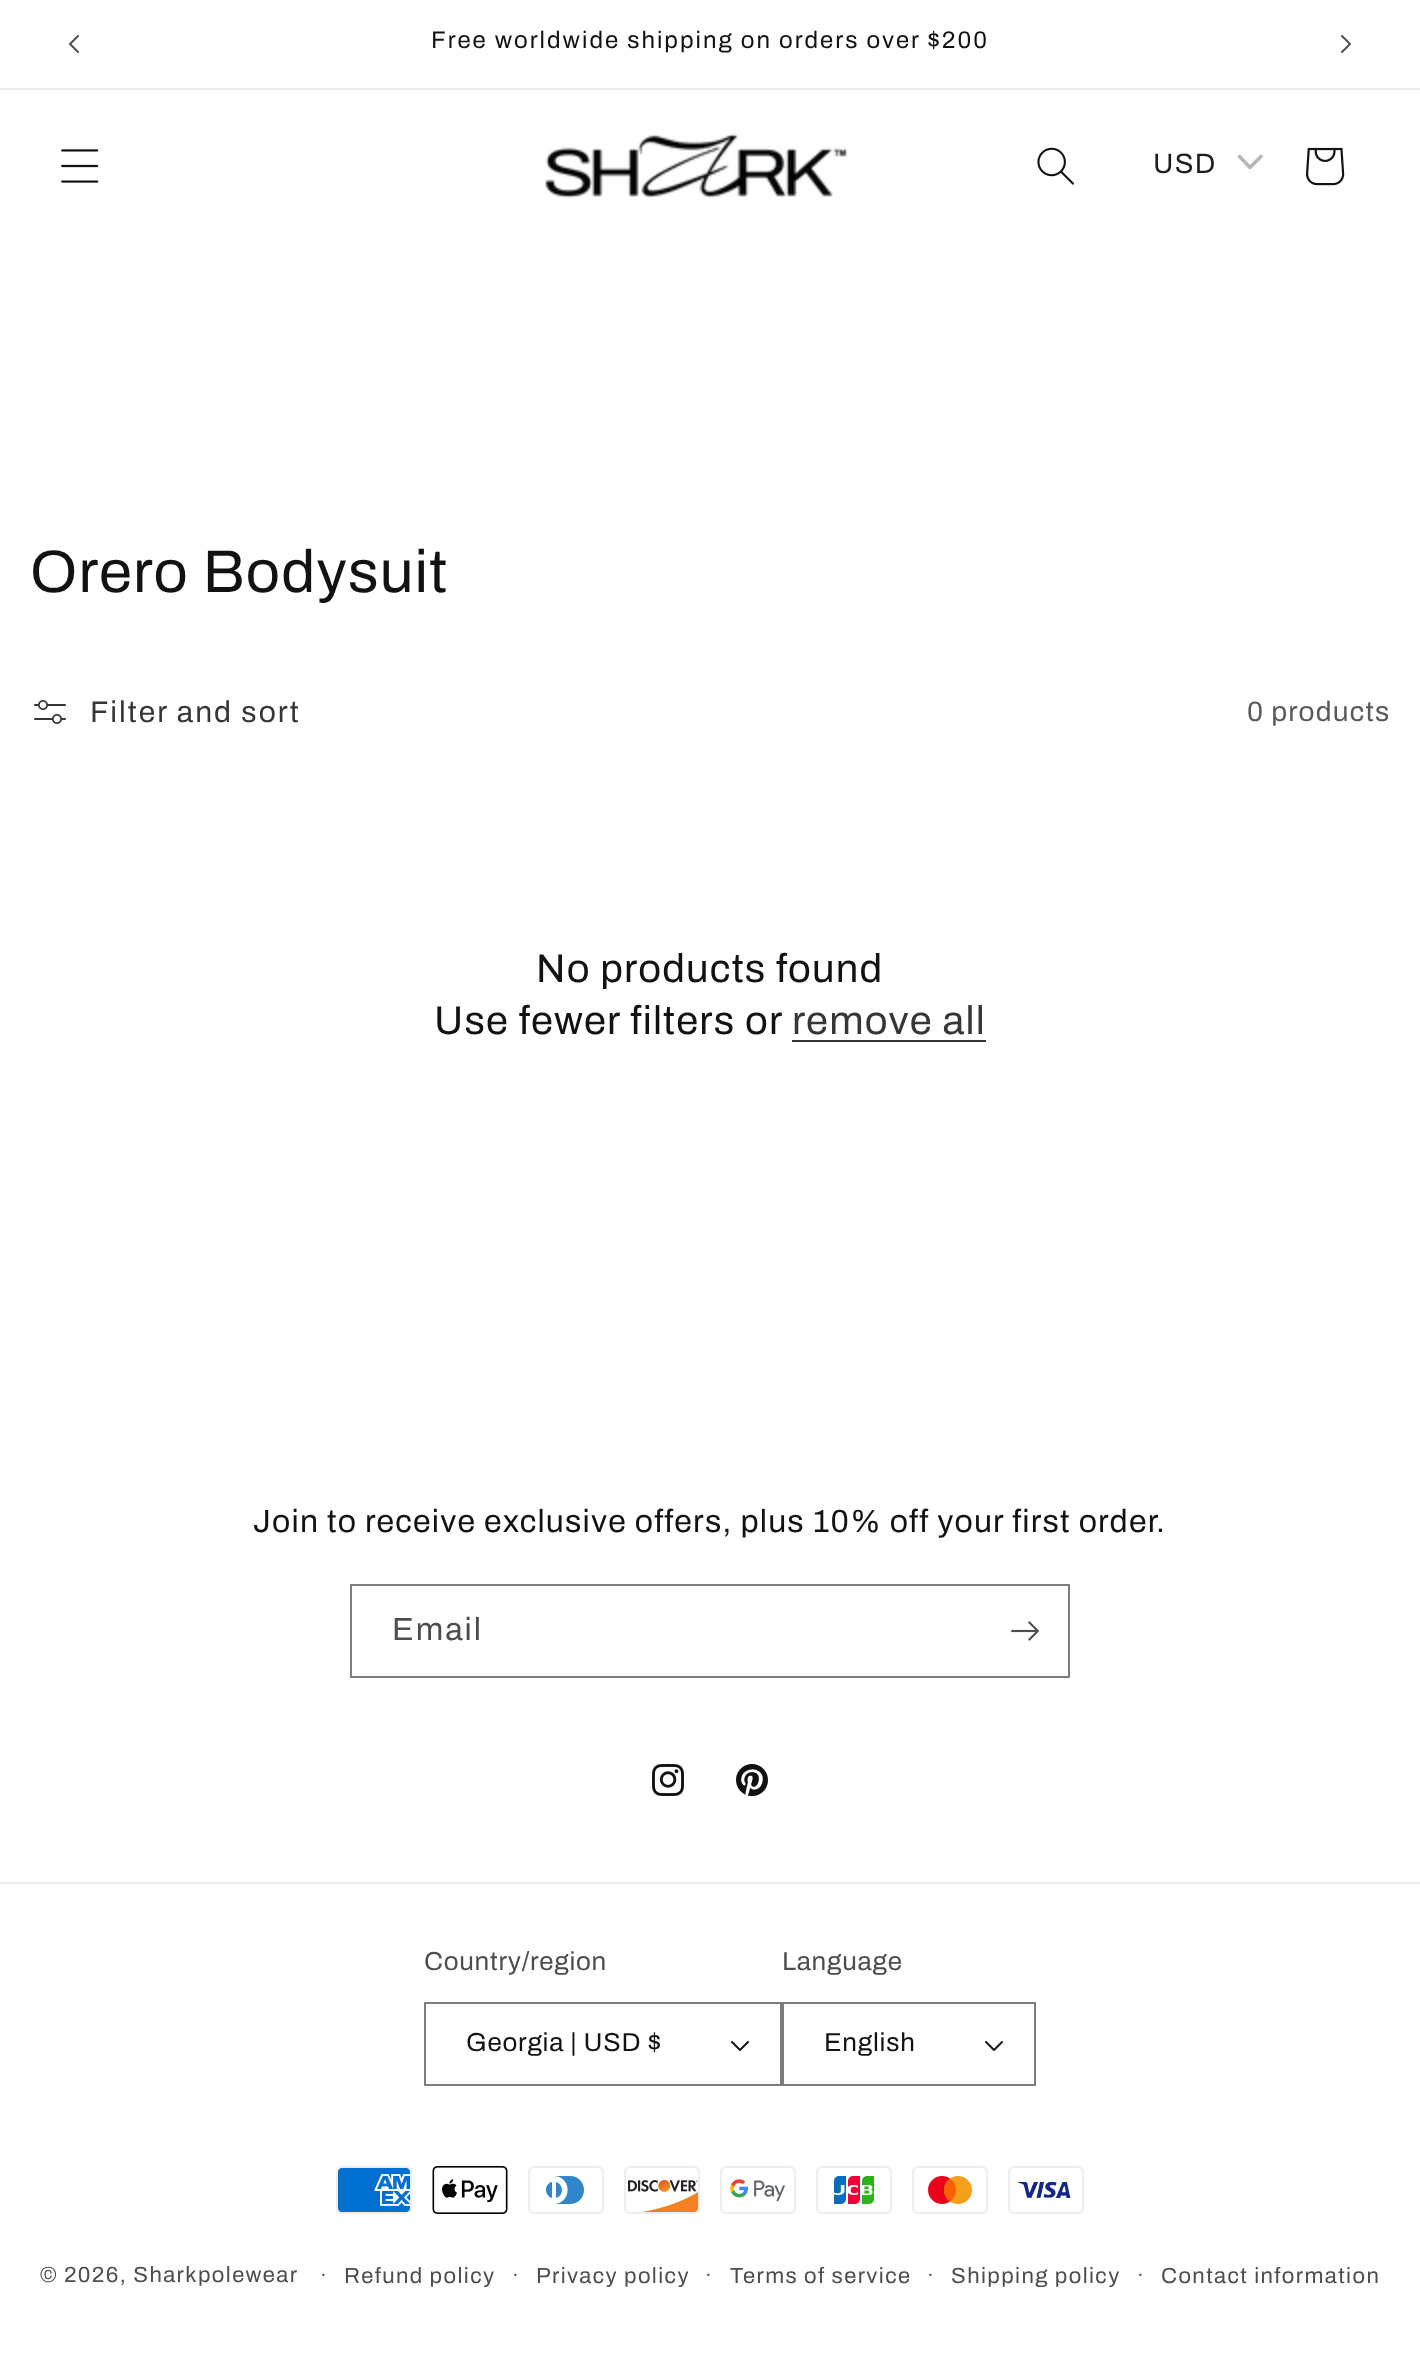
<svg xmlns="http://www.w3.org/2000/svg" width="1420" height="2359">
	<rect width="100%" height="100%" fill="#FFFFFF" />
	<rect x="0" y="88" width="1420" height="2" fill="#ECECEC" />
	<image x="69" y="35" width="10" height="18" href="assets/img1.png" />
	<text x="431" y="48" font-family="Archivo" font-size="24" letter-spacing="2" fill="#121212">Free worldwide shipping on orders over $200</text>
	<image x="1341" y="35" width="10" height="18" href="assets/img2.png" />
	<image x="61" y="149" width="38" height="34" href="assets/img3.png" />
	<image x="545" y="133" width="303" height="66" href="assets/img4.png" />
	<image x="1037" y="147" width="37" height="38" href="assets/img5.png" />
	<text x="1153" y="173" font-family="Archivo" font-size="28" letter-spacing="1.2" fill="#1E1E1E">USD</text>
	<path d="M1239.5 156.5L1250 167.5L1261 156.5" fill="none" stroke="#B7B7B7" stroke-width="3.6" stroke-linecap="round" stroke-linejoin="round" />
	<image x="1306" y="147" width="39" height="39" href="assets/img6.png" />
	<text x="30" y="592" font-family="Archivo" font-size="60" letter-spacing="1.2" fill="#121212">Orero Bodysuit</text>
	<image x="34" y="700" width="32" height="24" href="assets/img7.png" />
	<text x="90" y="722" font-family="Archivo" font-size="30" letter-spacing="2" fill="#363636">Filter and sort</text>
	<text x="1247" y="721" font-family="Archivo" font-size="28" letter-spacing="1.2" fill="#595959">0 products</text>
	<g font-family="Archivo" font-size="40" letter-spacing="1.2" fill="#121212">
		<text x="536" y="982">No products found</text>
		<text x="434" y="1034">Use fewer filters or</text>
	</g>
	<text x="792" y="1034" font-family="Archivo" font-size="40" letter-spacing="1.2" fill="#363636">remove all</text>
	<rect x="792" y="1040" width="194" height="2" fill="#363636" />
	<text x="253" y="1532" font-family="Archivo" font-size="32" letter-spacing="1.2" fill="#121212">Join to receive exclusive offers, plus 10% off your first order.</text>
	<rect x="351" y="1585" width="718" height="92" fill="none" stroke="#7D7D7D" stroke-width="2" />
	<text x="392" y="1640" font-family="Archivo" font-size="32" letter-spacing="2" fill="#4D4D4D">Email</text>
	<image x="1011" y="1621" width="28" height="20" href="assets/img8.png" />
	<image x="652" y="1764" width="32" height="32" href="assets/img9.png" />
	<image x="736" y="1764" width="32" height="33" href="assets/img10.png" />
	<rect x="0" y="1882" width="1420" height="2" fill="#ECECEC" />
	<text x="424" y="1970" font-family="Archivo" font-size="26" letter-spacing="0.75" fill="#4D4D4D">Country/region</text>
	<image x="731" y="2041" width="18" height="10" href="assets/img11.png" />
	<rect x="425" y="2003" width="356" height="82" fill="none" stroke="#7D7D7D" stroke-width="2" />
	<text x="466" y="2051" font-family="Archivo" font-size="26" letter-spacing="0.75" fill="#121212">Georgia | USD $</text>
	<text x="782" y="1970" font-family="Archivo" font-size="26" letter-spacing="0.75" fill="#4D4D4D">Language</text>
	<image x="985" y="2041" width="18" height="10" href="assets/img11.png" />
	<rect x="783" y="2003" width="252" height="82" fill="none" stroke="#7D7D7D" stroke-width="2" />
	<text x="824" y="2051" font-family="Archivo" font-size="26" letter-spacing="0.75" fill="#121212">English</text>
	<image x="336" y="2166" width="76" height="48" href="assets/img12.png" />
	<image x="432" y="2166" width="76" height="48" href="assets/img13.png" />
	<image x="528" y="2166" width="76" height="48" href="assets/img14.png" />
	<image x="624" y="2166" width="76" height="48" href="assets/img15.png" />
	<image x="720" y="2166" width="76" height="48" href="assets/img16.png" />
	<image x="816" y="2166" width="76" height="48" href="assets/img17.png" />
	<image x="912" y="2166" width="76" height="48" href="assets/img18.png" />
	<image x="1008" y="2166" width="76" height="48" href="assets/img19.png" />
	<text x="40" y="2282" font-family="Archivo" font-size="22" letter-spacing="1.4" fill="#4D4D4D">© 2026, Sharkpolewear</text>
	<text x="320" y="2282" font-family="Archivo" font-size="20" letter-spacing="1.4" fill="#4D4D4D">·</text>
	<text x="344" y="2283" font-family="Archivo" font-size="22" letter-spacing="1.4" fill="#4D4D4D">Refund policy</text>
	<text x="512" y="2282" font-family="Archivo" font-size="20" letter-spacing="1.4" fill="#4D4D4D">·</text>
	<text x="536" y="2283" font-family="Archivo" font-size="22" letter-spacing="1.4" fill="#4D4D4D">Privacy policy</text>
	<text x="705" y="2282" font-family="Archivo" font-size="20" letter-spacing="1.4" fill="#4D4D4D">·</text>
	<text x="730" y="2283" font-family="Archivo" font-size="22" letter-spacing="1.4" fill="#4D4D4D">Terms of service</text>
	<text x="927" y="2282" font-family="Archivo" font-size="20" letter-spacing="1.4" fill="#4D4D4D">·</text>
	<text x="951" y="2283" font-family="Archivo" font-size="22" letter-spacing="1.4" fill="#4D4D4D">Shipping policy</text>
	<text x="1137" y="2282" font-family="Archivo" font-size="20" letter-spacing="1.4" fill="#4D4D4D">·</text>
	<text x="1161" y="2283" font-family="Archivo" font-size="22" letter-spacing="1.4" fill="#4D4D4D">Contact information</text>
</svg>
